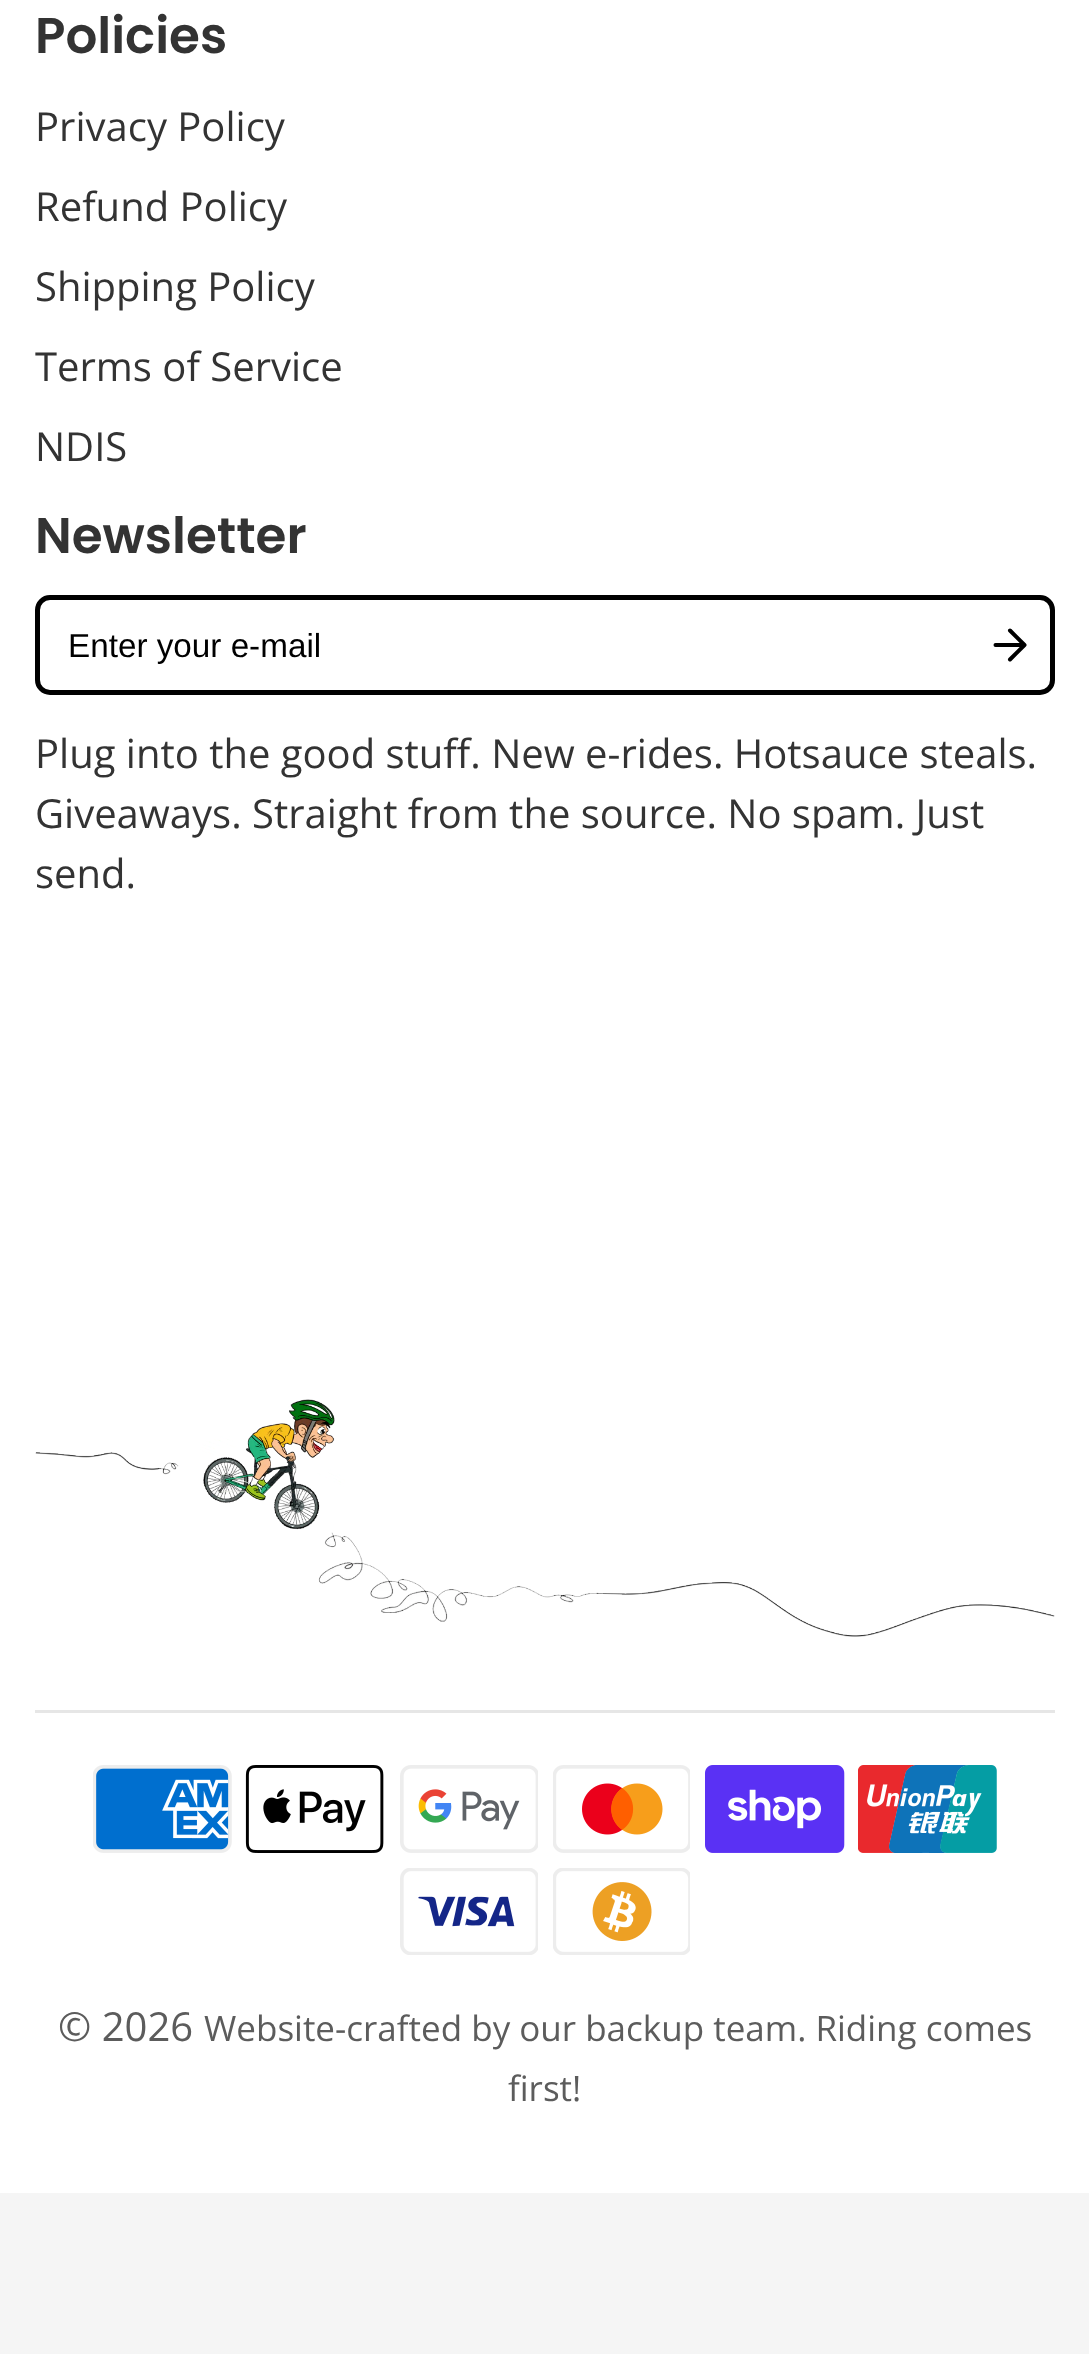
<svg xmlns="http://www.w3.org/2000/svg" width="1089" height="2354">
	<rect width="100%" height="100%" fill="#F5F5F5" />
	<rect x="0" y="0" width="1089" height="2193" fill="#FFFFFF" />
	<text x="35" y="53" font-family="Poppins" font-size="50" font-weight="600" fill="#333333">Policies</text>
	<g font-family="Open Sans" font-size="40" fill="#333333">
		<text x="35" y="141">Privacy Policy</text>
		<text x="35" y="221">Refund Policy</text>
		<text x="35" y="301">Shipping Policy</text>
		<text x="35" y="381">Terms of Service</text>
		<text x="35" y="461">NDIS</text>
	</g>
	<text x="35" y="553" font-family="Poppins" font-size="50" font-weight="600" fill="#333333">Newsletter</text>
	<rect x="37.5" y="597.5" width="1015" height="95" rx="12.5" fill="none" stroke="#000000" stroke-width="5" />
	<text x="68" y="657" font-family="Liberation Sans" font-size="33.25" fill="#000000">Enter your e-mail</text>
	<path d="M995.5 645H1022.5M1010 630.5L1024.5 645L1010 659.5" fill="none" stroke="#000000" stroke-width="4" stroke-linecap="round" stroke-linejoin="round" />
	<g font-family="Open Sans" font-size="40" fill="#333333">
		<text x="35" y="768">Plug into the good stuff. New e-rides. Hotsauce steals.</text>
		<text x="35" y="828">Giveaways. Straight from the source. No spam. Just</text>
		<text x="35" y="888">send.</text>
	</g>
	<image x="35" y="1399" width="1020" height="238" href="assets/img1.png" />
	<rect x="35" y="1710" width="1020" height="3" fill="#E6E6E6" />
	<image x="93" y="1765" width="139" height="88" href="assets/img2.png" />
	<image x="245" y="1765" width="139" height="88" href="assets/img3.png" />
	<image x="400" y="1765" width="138" height="88" href="assets/img4.png" />
	<image x="553" y="1765" width="137" height="88" href="assets/img5.png" />
	<image x="705" y="1765" width="140" height="88" href="assets/img6.png" />
	<image x="858" y="1765" width="139" height="88" href="assets/img7.png" />
	<image x="400" y="1868" width="138" height="87" href="assets/img8.png" />
	<image x="553" y="1868" width="137" height="87" href="assets/img9.png" />
	<text x="58" y="2041" font-family="Open Sans" font-size="40" fill="#5C5C5C">© 2026</text>
	<g font-family="Open Sans" font-size="35" fill="#5C5C5C">
		<text x="204" y="2041">Website-crafted by our backup team. Riding comes</text>
		<text x="508" y="2101">first!</text>
	</g>
</svg>
